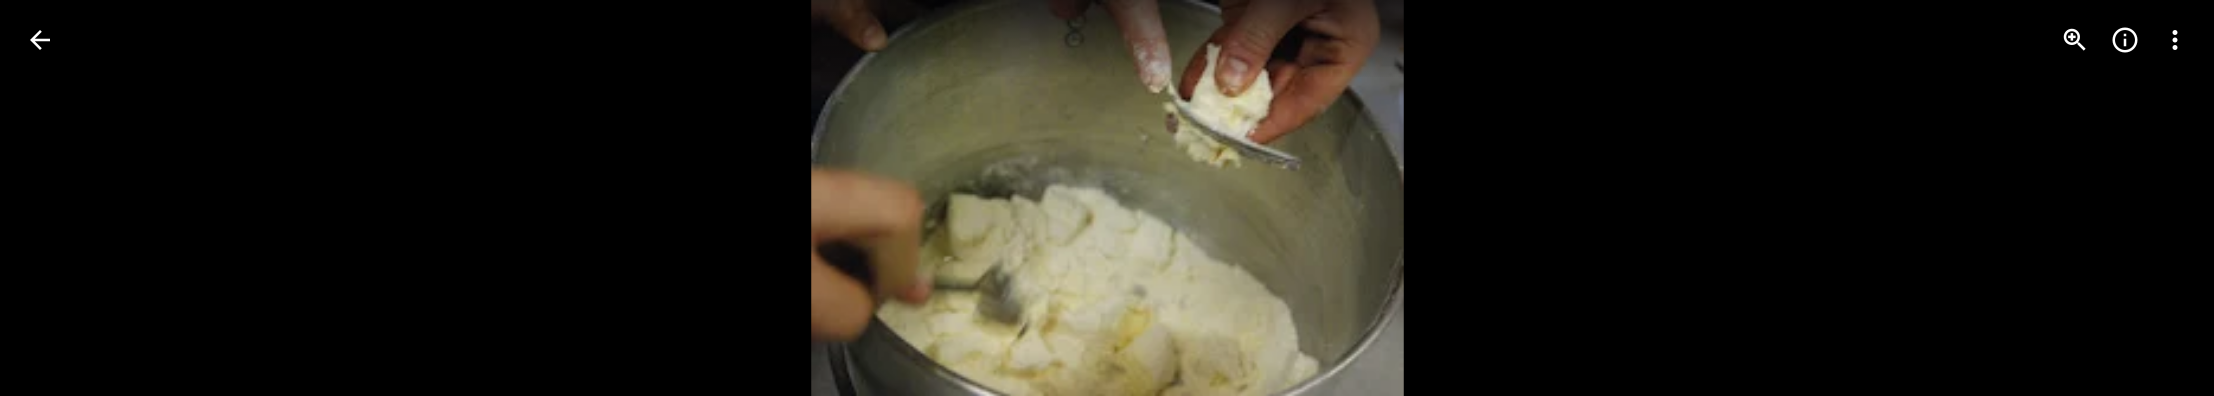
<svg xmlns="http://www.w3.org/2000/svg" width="2214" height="396">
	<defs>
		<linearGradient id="g1" gradientUnits="userSpaceOnUse" x1="1108" y1="0" x2="1108" y2="80"><stop offset="0" stop-color="#000000" stop-opacity="0.6" /><stop offset="1" stop-color="#000000" stop-opacity="0" /></linearGradient>
	</defs>
	<rect width="100%" height="100%" fill="#000000" />
	<image x="811" y="0" width="593" height="396" href="assets/img5.png" />
	<rect x="811" y="0" width="593" height="77" fill="url(#g1)" />
	<image x="30" y="30" width="20" height="20" href="assets/img1.png" />
	<image x="2063" y="28" width="23" height="23" href="assets/img2.png" />
	<image x="2112" y="27" width="26" height="26" href="assets/img3.png" />
	<image x="2172" y="30" width="6" height="20" href="assets/img4.png" />
</svg>
